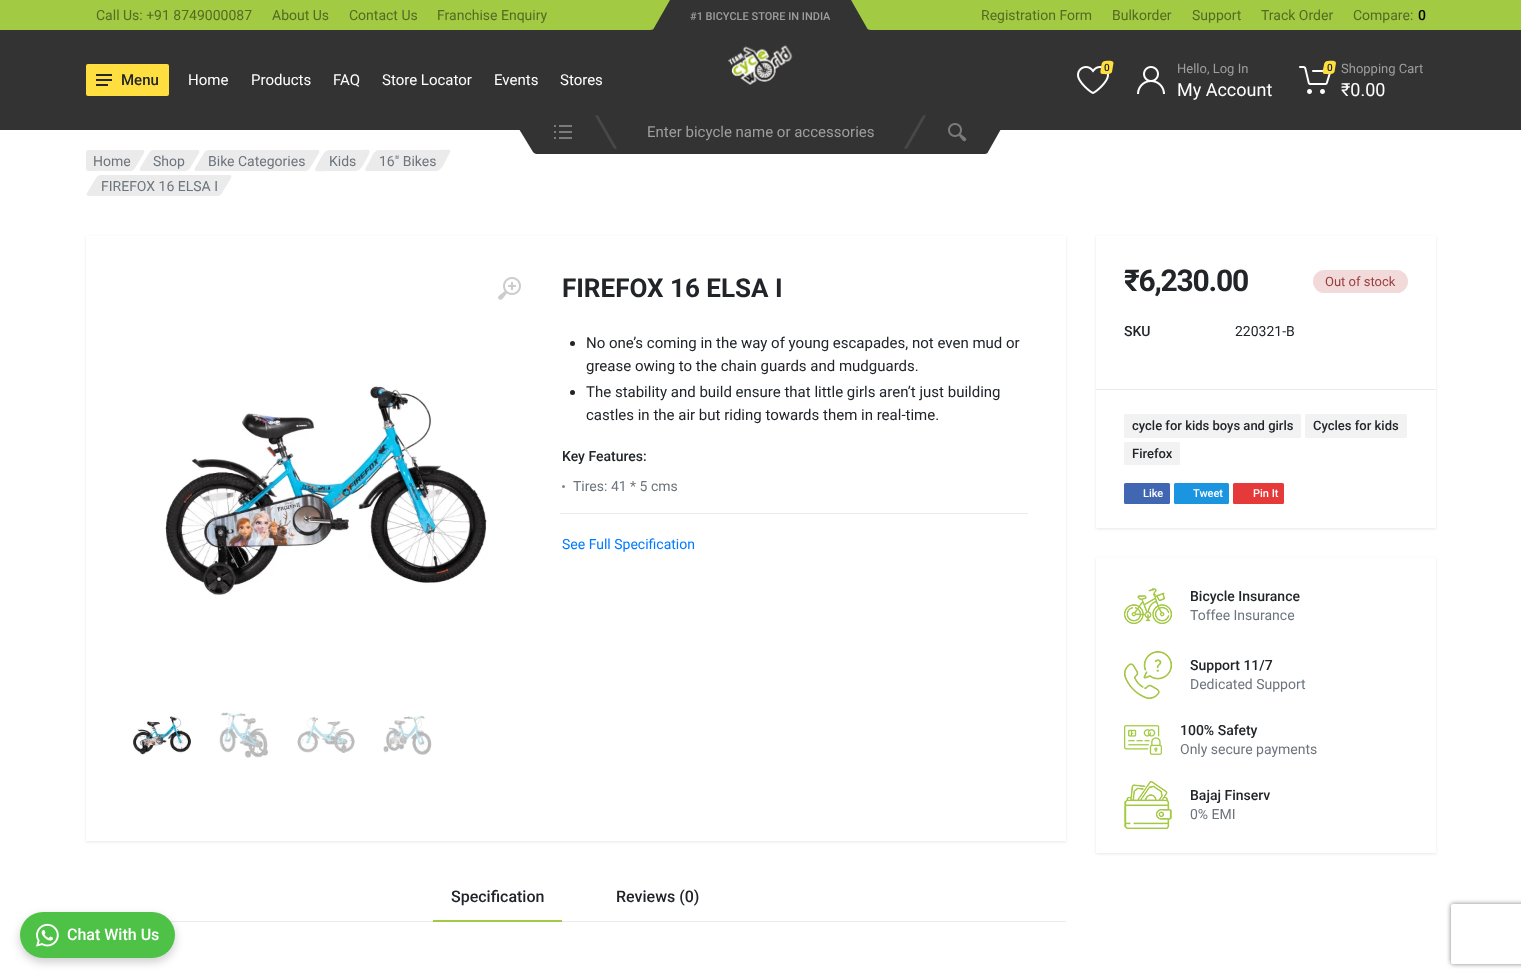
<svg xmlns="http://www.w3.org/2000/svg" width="1521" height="978">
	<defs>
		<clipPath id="clip1"><rect x="760" y="129" width="251" height="35" /></clipPath>
		<clipPath id="clip2"><path d="M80 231H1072V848H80ZM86 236H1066V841H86Z" clip-rule="evenodd" /></clipPath>
		<clipPath id="clip3"><path d="M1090 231H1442V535H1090ZM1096 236H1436V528H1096Z" clip-rule="evenodd" /></clipPath>
		<clipPath id="clip4"><path d="M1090 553H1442V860H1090ZM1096 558H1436V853H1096Z" clip-rule="evenodd" /></clipPath>
		<clipPath id="clip5"><path d="M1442 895H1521V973H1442ZM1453 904H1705C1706 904 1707 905 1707 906V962C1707 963 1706 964 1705 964H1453C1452 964 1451 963 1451 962V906C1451 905 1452 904 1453 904Z" clip-rule="evenodd" /></clipPath>
	</defs>
	<rect width="100%" height="100%" fill="#FFFFFF" />
	<rect x="0" y="0" width="1521" height="130" fill="#333333" />
	<path d="M0 0H670L654 28C654 29 652 30 650 30H-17Z" fill="#A3CA43" />
	<path d="M851 0H1521L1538 30H871C869 30 867 29 867 28Z" fill="#A3CA43" />
	<g font-family="Roboto" font-size="14" fill="#556A23">
		<text x="96" y="20">Call Us: +91 8749000087</text>
		<text x="272" y="20">About Us</text>
		<text x="349" y="20">Contact Us</text>
		<text x="437" y="20">Franchise Enquiry</text>
	</g>
	<text x="690" y="20" font-family="Roboto" font-size="11" font-weight="500" fill="#9E9E9E">#1 BICYCLE STORE IN INDIA</text>
	<image x="728" y="45" width="65" height="40" href="assets/img1.png" />
	<g font-family="Roboto" font-size="14" fill="#556A23">
		<text x="981" y="20">Registration Form</text>
		<text x="1112" y="20">Bulkorder</text>
		<text x="1192" y="20">Support</text>
		<text x="1261" y="20">Track Order</text>
		<text x="1353" y="20">Compare:</text>
	</g>
	<text x="1418" y="20" font-family="Roboto" font-size="14" font-weight="500" fill="#000000">0</text>
	<rect x="86" y="64" width="83" height="32" rx="2" fill="#FFDF40" />
	<image x="96" y="74" width="16" height="12" href="assets/img2.png" />
	<text x="121" y="85" font-family="Roboto" font-size="15" font-weight="500" fill="#212529">Menu</text>
	<g font-family="Roboto" font-size="15" fill="#FFFFFF">
		<text x="188" y="85">Home</text>
		<text x="251" y="85">Products</text>
		<text x="333" y="85">FAQ</text>
		<text x="382" y="85">Store Locator</text>
		<text x="494" y="85">Events</text>
		<text x="560" y="85">Stores</text>
	</g>
	<image x="1077" y="66" width="32" height="28" href="assets/img3.png" />
	<path d="M1105 61C1107 61 1113.5 60 1113.5 63L1112 72C1111 75 1105 74 1102.5 74C1099 74 1101 69.5 1101 67.5C1101.5 65 1101.5 61 1105 61Z" fill="#FFDF40" />
	<text x="1104" y="71" font-family="Roboto" font-size="10" font-weight="500" fill="#212529">0</text>
	<image x="1137" y="66" width="28" height="28" href="assets/img4.png" />
	<text x="1177" y="73" font-family="Roboto" font-size="13" fill="#9E9E9E">Hello, Log In</text>
	<text x="1177" y="96" font-family="Roboto" font-size="18" fill="#FFFFFF">My Account</text>
	<image x="1299" y="66" width="32" height="28" href="assets/img5.png" />
	<path d="M1327.5 61C1329.5 61 1336 60 1336 63L1334.5 72C1333 75 1327.5 74 1325 74C1321.5 74 1323 69.5 1323.5 67.5C1324 65 1324 61 1327.5 61Z" fill="#FFDF40" />
	<text x="1327" y="71" font-family="Roboto" font-size="10" font-weight="500" fill="#212529">0</text>
	<text x="1341" y="73" font-family="Roboto" font-size="13" fill="#9E9E9E">Shopping Cart</text>
	<text x="1341" y="96" font-family="Roboto" font-size="18" fill="#FFFFFF">₹0.00</text>
	<path d="M519 129H770L785 154H536L534 153L533 152Z" fill="#333333" />
	<image x="554" y="125" width="18" height="14" href="assets/img6.png" />
	<path d="M596 115C599 115 601 121 601.5 121.5L616.5 147.5C617.5 149.5 614.5 149 613.5 148L595.5 116.5C595 116 595.5 115 596 115Z" fill="#484848" />
	<g clip-path="url(#clip1)">
		<path d="M750 129H1001L988 152C988 153 986 154 985 154H736Z" fill="#333333" />
	</g>
	<text x="647" y="137" font-family="Roboto" font-size="15" fill="#9E9E9E">Enter bicycle name or accessories</text>
	<path d="M925 115C925.5 115 926 116 925.5 116.5L907.5 148C906.5 149 903.5 149.5 904.5 147.5L919.5 121.5C920 121 922 115 925 115Z" fill="#484848" />
	<image x="948" y="123" width="19" height="19" href="assets/img7.png" />
	<path d="M101 150H142C144 150 145 151 144 153L135 168C134 170 132 171 130 171H89C87 171 86 170 87 168L96 153C97 151 99 150 101 150Z" fill="#EBEBEB" />
	<rect x="86" y="150" width="39" height="21" rx="3" fill="#EBEBEB" />
	<text x="93" y="166" font-family="Roboto" font-size="14" fill="#6C757D">Home</text>
	<path d="M153 150H197C199 150 200 151 199 153L190 168C189 170 187 171 185 171H141C140 171 139 170 140 168L149 153C150 151 152 150 153 150Z" fill="#EBEBEB" />
	<text x="153" y="166" font-family="Roboto" font-size="14" fill="#6C757D">Shop</text>
	<path d="M208 150H318C319 150 320 151 319 153L310 168C309 170 307 171 306 171H196C195 171 194 170 195 168L204 153C205 151 207 150 208 150Z" fill="#EBEBEB" />
	<text x="208" y="166" font-family="Roboto" font-size="14" fill="#6C757D">Bike Categories</text>
	<path d="M329 150H355C369 150 373 147 367 158C365 161 361 171 356 171H330C315 171 312 174 318 163C320 160 324 150 329 150Z" fill="#EBEBEB" />
	<text x="329" y="166" font-family="Roboto" font-size="14" fill="#6C757D">Kids</text>
	<path d="M379 150H437C452 150 453 148 447 158C445 162 442 170 437 171H367C362 171 370 162 370 160C372 157 374 150 379 150Z" fill="#EBEBEB" />
	<text x="379" y="166" font-family="Roboto" font-size="14" fill="#6C757D">16" Bikes</text>
	<path d="M101 175H230C231 175 232 176 231 178L222 193C221 195 219 196 218 196H89C87 196 86 195 87 193L96 178C97 176 99 175 101 175Z" fill="#EBEBEB" />
	<text x="101" y="191" font-family="Roboto" font-size="14" fill="#6C757D">FIREFOX 16 ELSA I</text>
	<g clip-path="url(#clip2)">
		<rect x="86" y="237" width="980" height="605" fill="#000000" fill-opacity="0.09" filter="blur(1.5px)" />
	</g>
	<g clip-path="url(#clip3)">
		<rect x="1096" y="237" width="340" height="292" fill="#000000" fill-opacity="0.09" filter="blur(1.5px)" />
	</g>
	<text x="1124" y="291" font-family="Roboto" font-size="30" font-weight="700" letter-spacing="-1.25" fill="#212529">₹6,230.00</text>
	<rect x="1313" y="270" width="95" height="23" rx="11.5" fill="#F2DADA" />
	<text x="1325" y="286" font-family="Roboto" font-size="13" fill="#993D3D">Out of stock</text>
	<text x="1124" y="336" font-family="Roboto" font-size="14" font-weight="500" fill="#212529">SKU</text>
	<text x="1235" y="336" font-family="Roboto" font-size="14" fill="#212529">220321-B</text>
	<rect x="1096" y="389" width="340" height="1" fill="#EBEBEB" />
	<rect x="1124" y="414" width="177" height="24" rx="1.5" fill="#F2F2F2" />
	<text x="1132" y="430" font-family="Roboto" font-size="13" font-weight="500" fill="#212529">cycle for kids boys and girls</text>
	<rect x="1305" y="414" width="102" height="24" rx="1.5" fill="#F2F2F2" />
	<text x="1313" y="430" font-family="Roboto" font-size="13" font-weight="500" fill="#212529">Cycles for kids</text>
	<rect x="1124" y="442" width="56" height="23" rx="1.5" fill="#F2F2F2" />
	<text x="1132" y="458" font-family="Roboto" font-size="13" font-weight="500" fill="#212529">Firefox</text>
	<rect x="1124" y="483" width="46" height="21" rx="1.5" fill="#4267B2" />
	<text x="1143" y="497" font-family="Roboto" font-size="11" font-weight="500" fill="#FFFFFF">Like</text>
	<rect x="1174" y="483" width="55" height="21" rx="1.5" fill="#1B95E0" />
	<text x="1193" y="497" font-family="Roboto" font-size="11" font-weight="500" fill="#FFFFFF">Tweet</text>
	<rect x="1233" y="483" width="51" height="21" rx="1.5" fill="#E63939" />
	<text x="1253" y="497" font-family="Roboto" font-size="11" font-weight="500" fill="#FFFFFF">Pin It</text>
	<g clip-path="url(#clip4)">
		<rect x="1096" y="559" width="340" height="295" fill="#000000" fill-opacity="0.09" filter="blur(1.5px)" />
	</g>
	<image x="1124" y="588" width="48" height="36" href="assets/img8.png" />
	<text x="1190" y="601" font-family="Roboto" font-size="14" font-weight="500" fill="#212529">Bicycle Insurance</text>
	<text x="1190" y="620" font-family="Roboto" font-size="14" fill="#6C757D">Toffee Insurance</text>
	<image x="1124" y="651" width="48" height="48" href="assets/img9.png" />
	<text x="1190" y="670" font-family="Roboto" font-size="14" font-weight="500" fill="#212529">Support 11/7</text>
	<text x="1190" y="689" font-family="Roboto" font-size="14" fill="#6C757D">Dedicated Support</text>
	<image x="1124" y="725" width="38" height="30" href="assets/img10.png" />
	<text x="1180" y="735" font-family="Roboto" font-size="14" font-weight="500" fill="#212529">100% Safety</text>
	<text x="1180" y="754" font-family="Roboto" font-size="14" fill="#6C757D">Only secure payments</text>
	<image x="1124" y="781" width="48" height="48" href="assets/img11.png" />
	<text x="1190" y="800" font-family="Roboto" font-size="14" font-weight="500" fill="#212529">Bajaj Finserv</text>
	<text x="1190" y="819" font-family="Roboto" font-size="14" fill="#6C757D">0% EMI</text>
	<image x="498" y="277" width="23" height="23" href="assets/img12.png" />
	<image x="165" y="385" width="322" height="210" href="assets/img13.png" />
	<image x="133" y="716" width="58" height="39" href="assets/img14.png" />
	<image x="219" y="712" width="49" height="46" href="assets/img15.png" />
	<image x="297" y="717" width="58" height="36" href="assets/img16.png" />
	<image x="383" y="715" width="49" height="40" href="assets/img17.png" />
	<text x="562" y="297" font-family="Roboto" font-size="26" font-weight="700" fill="#212529">FIREFOX 16 ELSA I</text>
	<circle cx="572.5" cy="343.5" r="2.5" fill="#212529" />
	<g font-family="Roboto" font-size="15" fill="#212529">
		<text x="586" y="348">No one’s coming in the way of young escapades, not even mud or</text>
		<text x="586" y="371">grease owing to the chain guards and mudguards.</text>
	</g>
	<circle cx="572.5" cy="392.5" r="2.5" fill="#212529" />
	<g font-family="Roboto" font-size="15" fill="#212529">
		<text x="586" y="397">The stability and build ensure that little girls aren’t just building</text>
		<text x="586" y="420">castles in the air but riding towards them in real-time.</text>
	</g>
	<text x="562" y="461" font-family="Roboto" font-size="14" font-weight="500" fill="#212529">Key Features:</text>
	<circle cx="563.5" cy="486.5" r="1.5" fill="#828A91" />
	<text x="573" y="491" font-family="Roboto" font-size="14" fill="#6C757D">Tires: 41 * 5 cms</text>
	<rect x="560" y="513" width="468" height="1" fill="#EBEBEB" />
	<text x="562" y="549" font-family="Roboto" font-size="14" fill="#007BFF">See Full Specification</text>
	<rect x="170" y="921" width="896" height="1" fill="#EBEBEB" />
	<rect x="433" y="920" width="129" height="2" fill="#A3CA43" />
	<g font-family="Roboto" font-size="16" font-weight="500" fill="#212529">
		<text x="451" y="902">Specification</text>
		<text x="616" y="902">Reviews (0)</text>
	</g>
	<rect x="20" y="916" width="155" height="46" rx="23" fill="#000000" fill-opacity="0.2" filter="blur(5px)" />
	<rect x="20" y="912" width="155" height="46" rx="23" fill="#4DC247" />
	<image x="36" y="923" width="23" height="24" href="assets/img18.png" />
	<text x="67" y="940" font-family="Roboto" font-size="16" font-weight="500" fill="#FFFFFF">Chat With Us</text>
	<g clip-path="url(#clip5)">
		<rect x="1451" y="904" width="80" height="60" rx="2" fill="#808080" filter="blur(2.5px)" />
	</g>
</svg>
